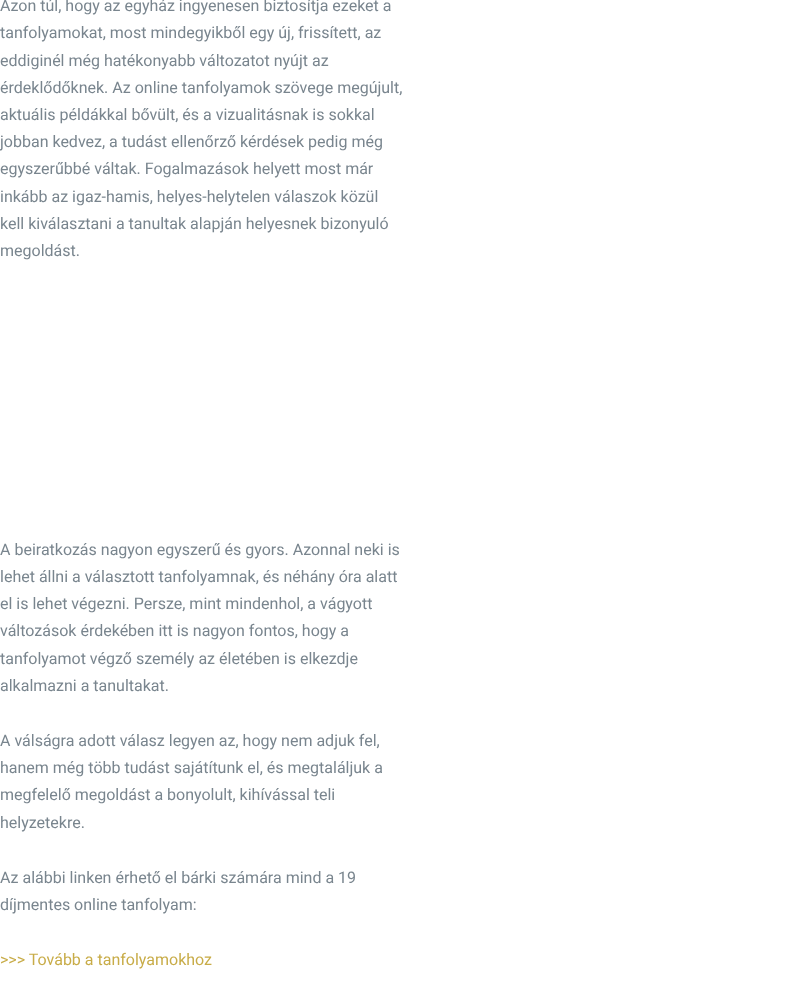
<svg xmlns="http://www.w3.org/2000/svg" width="812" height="983">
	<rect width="100%" height="100%" fill="#FFFFFF" />
	<g font-family="Roboto" font-size="16" fill="#79858E">
		<text x="0" y="11">Azon túl, hogy az egyház ingyenesen biztosítja ezeket a</text>
		<text x="0" y="38">tanfolyamokat, most mindegyikből egy új, frissített, az</text>
		<text x="0" y="66">eddiginél még hatékonyabb változatot nyújt az</text>
		<text x="0" y="93">érdeklődőknek. Az online tanfolyamok szövege megújult,</text>
		<text x="0" y="120">aktuális példákkal bővült, és a vizualitásnak is sokkal</text>
		<text x="0" y="147">jobban kedvez, a tudást ellenőrző kérdések pedig még</text>
		<text x="0" y="174">egyszerűbbé váltak. Fogalmazások helyett most már</text>
		<text x="0" y="202">inkább az igaz-hamis, helyes-helytelen válaszok közül</text>
		<text x="0" y="229">kell kiválasztani a tanultak alapján helyesnek bizonyuló</text>
		<text x="0" y="256">megoldást.</text>
		<text x="0" y="555">A beiratkozás nagyon egyszerű és gyors. Azonnal neki is</text>
		<text x="0" y="582">lehet állni a választott tanfolyamnak, és néhány óra alatt</text>
		<text x="0" y="609">el is lehet végezni. Persze, mint mindenhol, a vágyott</text>
		<text x="0" y="636">változások érdekében itt is nagyon fontos, hogy a</text>
		<text x="0" y="664">tanfolyamot végző személy az életében is elkezdje</text>
		<text x="0" y="691">alkalmazni a tanultakat.</text>
		<text x="0" y="746">A válságra adott válasz legyen az, hogy nem adjuk fel,</text>
		<text x="0" y="773">hanem még több tudást sajátítunk el, és megtaláljuk a</text>
		<text x="0" y="800">megfelelő megoldást a bonyolult, kihívással teli</text>
		<text x="0" y="828">helyzetekre.</text>
		<text x="0" y="883">Az alábbi linken érhető el bárki számára mind a 19</text>
		<text x="0" y="910">díjmentes online tanfolyam:</text>
	</g>
	<text x="0" y="965" font-family="Roboto" font-size="16" fill="#C8AC48">&gt;&gt;&gt; Tovább a tanfolyamokhoz</text>
</svg>
